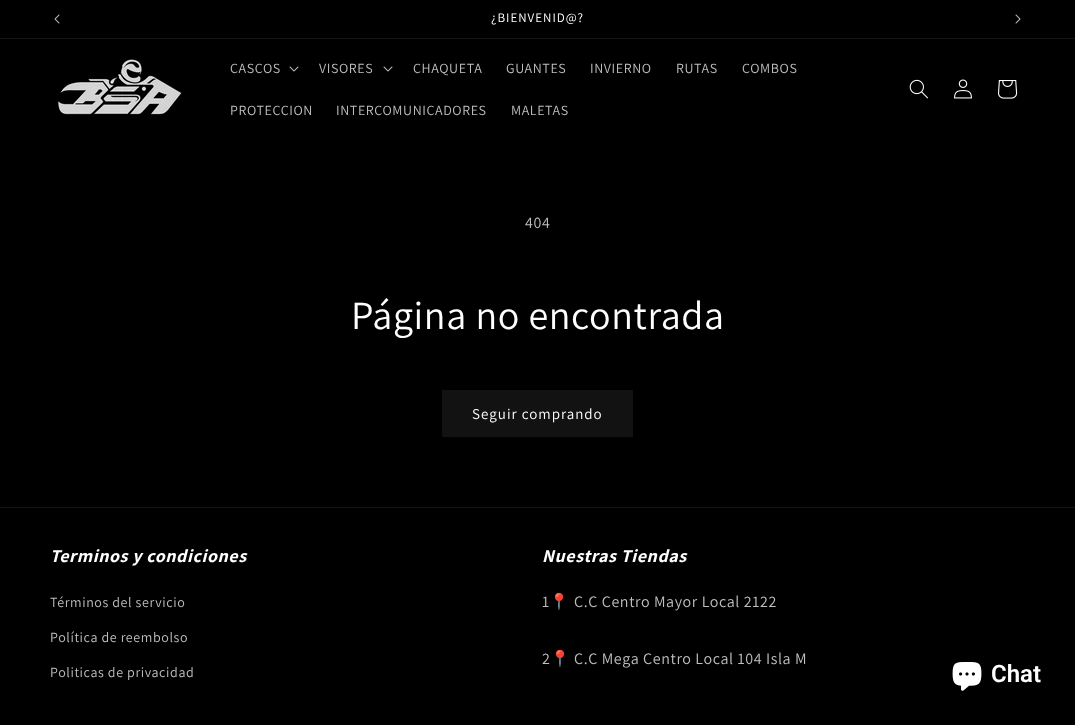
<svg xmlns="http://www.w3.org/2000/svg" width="1075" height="725">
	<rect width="100%" height="100%" fill="#000000" />
	<rect x="0" y="38" width="1075" height="1" fill="#141414" />
	<image x="54" y="14" width="6" height="10" href="assets/img1.png" />
	<text x="491" y="22" font-family="Assistant" font-size="13" letter-spacing="1" fill="#FFFFFF">¿BIENVENID@?</text>
	<image x="1015" y="14" width="6" height="10" href="assets/img2.png" />
	<image x="58" y="59" width="124" height="56" href="assets/img3.png" />
	<text x="230" y="73" font-family="Assistant" font-size="14" letter-spacing="0.6" fill="#BFBFBF">CASCOS</text>
	<image x="289" y="66" width="10" height="6" href="assets/img4.png" />
	<text x="319" y="73" font-family="Assistant" font-size="14" letter-spacing="0.6" fill="#BFBFBF">VISORES</text>
	<image x="383" y="66" width="10" height="6" href="assets/img4.png" />
	<g font-family="Assistant" font-size="14" letter-spacing="0.6" fill="#BFBFBF">
		<text x="413" y="73">CHAQUETA</text>
		<text x="506" y="73">GUANTES</text>
		<text x="590" y="73">INVIERNO</text>
		<text x="676" y="73">RUTAS</text>
		<text x="742" y="73">COMBOS</text>
		<text x="230" y="115">PROTECCION</text>
		<text x="336" y="115">INTERCOMUNICADORES</text>
		<text x="511" y="115">MALETAS</text>
	</g>
	<image x="909" y="79" width="19" height="20" href="assets/img5.png" />
	<image x="954" y="79" width="18" height="20" href="assets/img6.png" />
	<image x="998" y="80" width="20" height="19" href="assets/img7.png" />
	<text x="525" y="228" font-family="Assistant" font-size="16" letter-spacing="0.6" fill="#BFBFBF">404</text>
	<text x="351" y="329" font-family="Assistant" font-size="40" letter-spacing="0.6" fill="#FFFFFF">Página no encontrada</text>
	<rect x="442" y="390" width="191" height="47" fill="#121212" />
	<text x="472" y="419" font-family="Assistant" font-size="15" letter-spacing="1" fill="#FFFFFF">Seguir comprando</text>
	<rect x="0" y="507" width="1075" height="1" fill="#141414" />
	<text x="50" y="562" font-family="Assistant" font-size="18" font-weight="700" font-style="italic" letter-spacing="0.6" fill="#FFFFFF">Terminos y condiciones</text>
	<g font-family="Assistant" font-size="14" letter-spacing="0.6" fill="#BFBFBF">
		<text x="50" y="607">Términos del servicio</text>
		<text x="50" y="642">Política de reembolso</text>
		<text x="50" y="677">Politicas de privacidad</text>
	</g>
	<text x="542" y="562" font-family="Assistant" font-size="18" font-weight="700" font-style="italic" letter-spacing="0.6" fill="#FFFFFF">Nuestras Tiendas</text>
	<text x="542" y="607" font-family="Assistant" font-size="16" letter-spacing="0.6" fill="#BFBFBF">1</text>
	<text x="549" y="607" font-family="Noto Color Emoji" font-size="16" letter-spacing="0.6" fill="#BFBFBF">📍</text>
	<g font-family="Assistant" font-size="16" letter-spacing="0.6" fill="#BFBFBF">
		<text x="574" y="607">C.C Centro Mayor Local 2122</text>
		<text x="542" y="664">2</text>
	</g>
	<text x="550" y="664" font-family="Noto Color Emoji" font-size="16" letter-spacing="0.6" fill="#BFBFBF">📍</text>
	<text x="574" y="664" font-family="Assistant" font-size="16" letter-spacing="0.6" fill="#BFBFBF">C.C Mega Centro Local 104 Isla M</text>
	<image x="952" y="662" width="30" height="29" href="assets/img8.png" />
	<text x="991" y="682" font-family="Roboto" font-size="24" font-weight="600" fill="#FFFFFF">Chat</text>
</svg>
